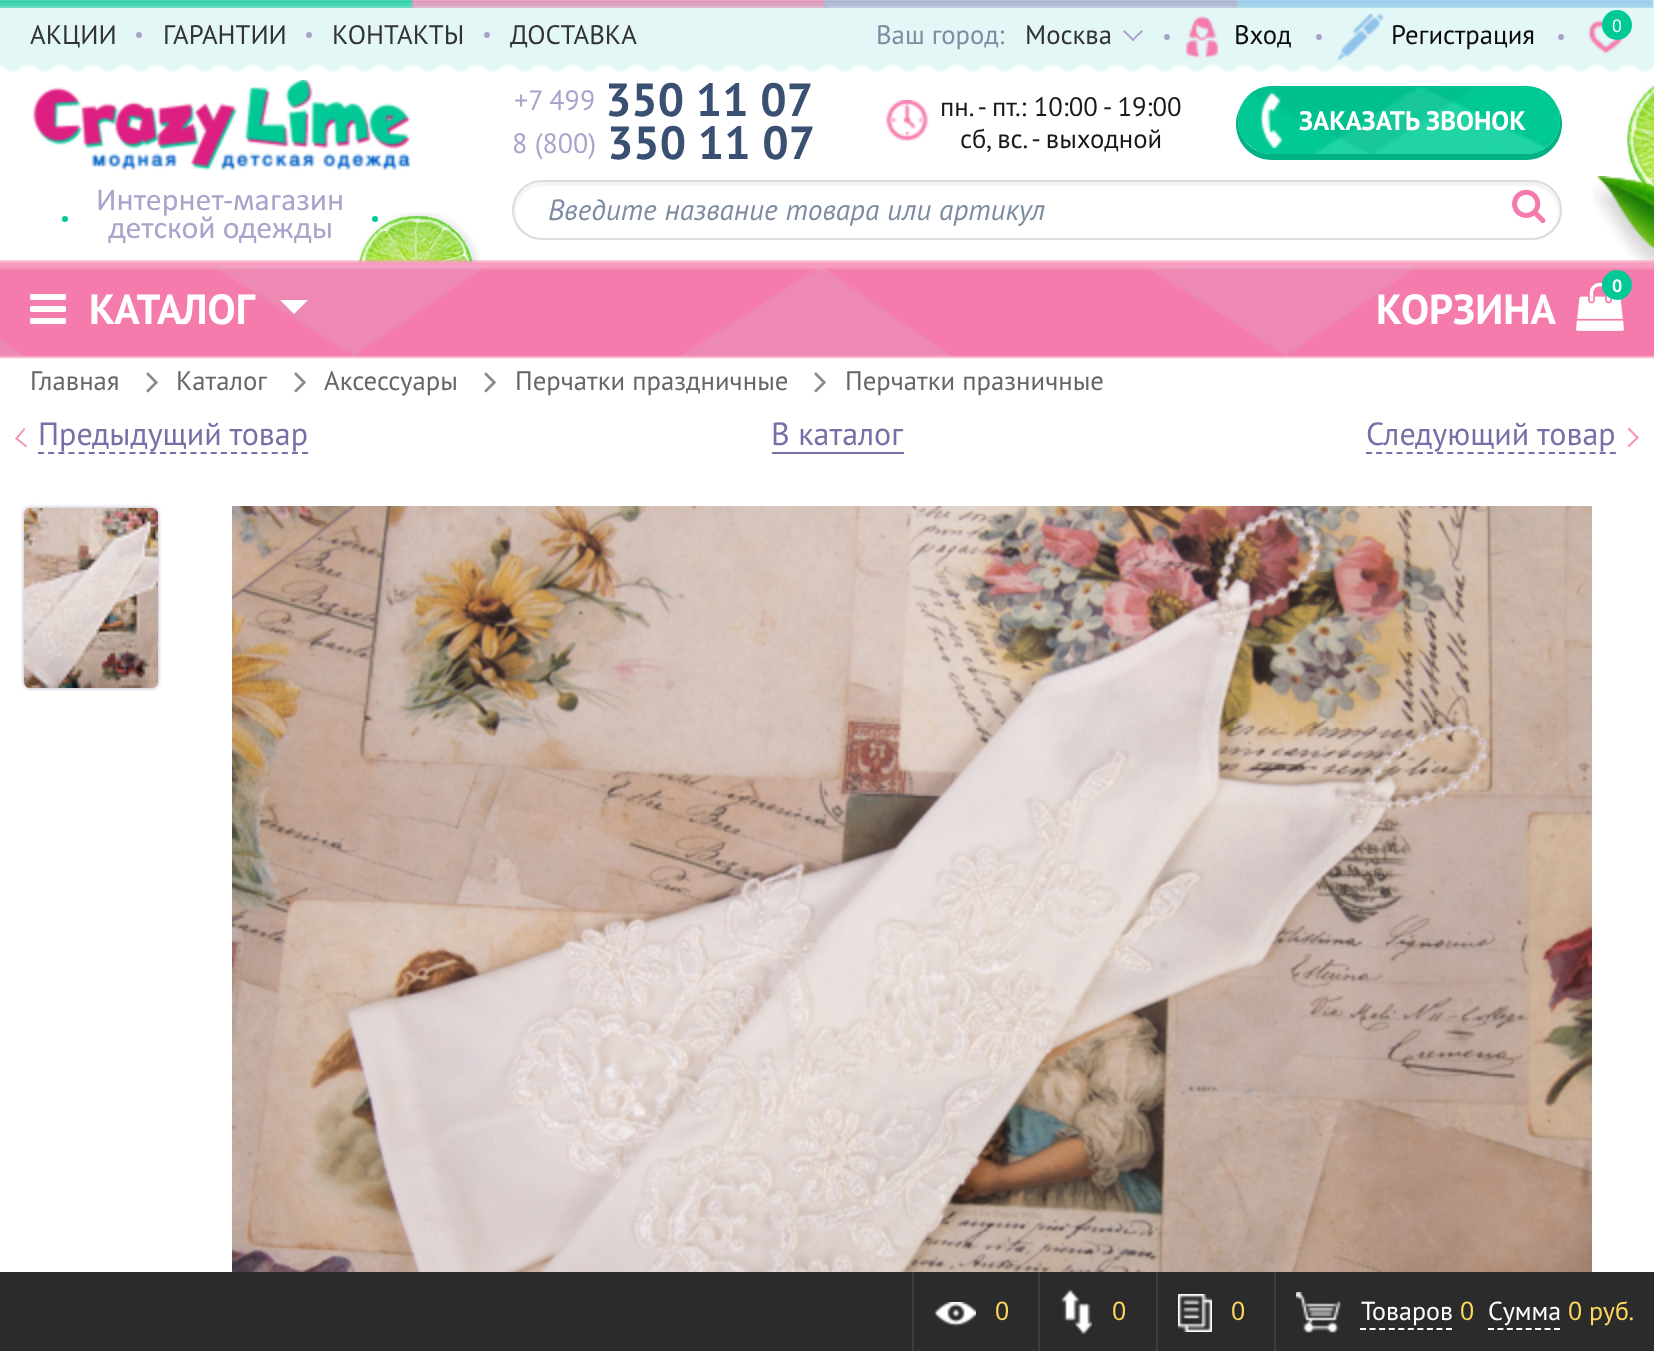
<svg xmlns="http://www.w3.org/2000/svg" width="1654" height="1351">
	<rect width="100%" height="100%" fill="#FFFFFF" />
	<image x="0" y="0" width="1654" height="8" href="assets/img1.png" />
	<image x="0" y="0" width="1654" height="72" href="assets/img2.png" />
	<text x="30" y="44" font-family="PT Sans" font-size="26.75" fill="#333333">АКЦИИ</text>
	<circle cx="139" cy="35" r="3" fill="#AAA3CC" />
	<text x="163" y="44" font-family="PT Sans" font-size="26.75" fill="#333333">ГАРАНТИИ</text>
	<circle cx="309" cy="35" r="3" fill="#AAA3CC" />
	<text x="332" y="44" font-family="PT Sans" font-size="26.75" fill="#333333">КОНТАКТЫ</text>
	<circle cx="487" cy="35" r="3" fill="#AAA3CC" />
	<text x="510" y="44" font-family="PT Sans" font-size="26.75" fill="#333333">ДОСТАВКА</text>
	<text x="876" y="44" font-family="PT Sans" font-size="26.75" fill="#7E8CA2">Ваш город:</text>
	<text x="1025" y="44" font-family="PT Sans" font-size="26.75" fill="#333333">Москва</text>
	<path d="M1141.5 30L1143 31.5L1133 41L1131.5 40Z" fill="#AAA3CC" />
	<path d="M1124.5 30L1134.5 40L1133 41L1123 31.5Z" fill="#AAA3CC" />
	<circle cx="1167" cy="37" r="3" fill="#AAA3CC" />
	<image x="1186" y="16" width="32" height="42" href="assets/img3.png" />
	<text x="1234" y="44" font-family="PT Sans" font-size="26.75" fill="#0D0C0B">Вход</text>
	<circle cx="1319" cy="37" r="3" fill="#AAA3CC" />
	<image x="1338" y="14" width="46" height="46" href="assets/img4.png" />
	<text x="1391" y="44" font-family="PT Sans" font-size="26.75" fill="#0D0C0B">Регистрация</text>
	<image x="1588" y="20" width="36" height="34" href="assets/img5.png" />
	<circle cx="1617" cy="25" r="15" fill="#00C996" />
	<text x="1612" y="32" font-family="PT Sans" font-size="18" fill="#FFFFFF">0</text>
	<circle cx="1561" cy="37" r="3" fill="#AAA3CC" />
	<text x="514" y="110" font-family="PT Sans" font-size="28" fill="#AAA3CC">+7 499</text>
	<text x="605" y="116" font-family="PT Sans" font-size="46.5" font-weight="700" fill="#3A5072">350 11 07</text>
	<text x="512" y="153" font-family="PT Sans" font-size="28" fill="#AAA3CC">8 (800)</text>
	<text x="607" y="159" font-family="PT Sans" font-size="46.5" font-weight="700" fill="#3A5072">350 11 07</text>
	<image x="886" y="100" width="43" height="41" href="assets/img6.png" />
	<g font-family="PT Sans" font-size="26.75" fill="#191919">
		<text x="940" y="116">пн. - пт.: 10:00 - 19:00</text>
		<text x="960" y="148">сб, вс. - выходной</text>
	</g>
	<path d="M1242 105C1238 110 1236 117 1236 124C1236 144 1252 160 1272 160H1526C1546 160 1562 144 1562 124C1562 117 1560 110 1556 105C1559 109 1560 114 1560 120C1560 139 1545 154 1526 154H1272C1253 154 1238 139 1238 120C1238 114 1239 109 1242 105Z" fill="#00B285" />
	<rect x="1238" y="86" width="322" height="68" rx="34" fill="#00C08F" />
	<image x="1238" y="86" width="322" height="68" href="assets/img7.png" />
	<image x="1260" y="92" width="22" height="56" href="assets/img8.png" />
	<text x="1299" y="130" font-family="PT Sans" font-size="26.75" font-weight="700" fill="#FFFFFF">ЗАКАЗАТЬ ЗВОНОК</text>
	<path d="M542 186H1532C1546 186 1558 198 1558 212C1558 226 1546 238 1532 238C1547 238 1560 225 1560 210C1560 195 1547 182 1532 182H542C527 182 514 195 514 210C514 225 527 238 542 238C528 238 516 226 516 212C516 198 528 186 542 186Z" fill="#F4F4F4" />
	<rect x="513" y="181" width="1048" height="58" rx="29" fill="none" stroke="#DCDCDC" stroke-width="2" />
	<text x="548" y="220" font-family="PT Sans" font-size="29.3" font-style="italic" fill="#7E8CA2">Введите название товара или артикул</text>
	<image x="1512" y="189" width="34" height="35" href="assets/img9.png" />
	<image x="1627" y="84" width="27" height="103" href="assets/img10.png" />
	<image x="32" y="80" width="378" height="90" href="assets/img11.png" />
	<text x="96" y="210" font-family="Calibri" font-size="32" fill="#AAA3CC">Интернет-магазин</text>
	<circle cx="65" cy="219" r="3" fill="#00C996" />
	<text x="108" y="238" font-family="Calibri" font-size="32" fill="#AAA3CC">детской одежды</text>
	<circle cx="375" cy="219" r="3" fill="#00C996" />
	<image x="358" y="212" width="122" height="51" href="assets/img12.png" />
	<image x="1593" y="176" width="61" height="87" href="assets/img13.png" />
	<image x="0" y="260" width="1654" height="99" href="assets/img14.png" />
	<image x="30" y="294" width="36" height="30" href="assets/img15.png" />
	<text x="89" y="324" font-family="PT Sans" font-size="42" font-weight="700" fill="#FFFFFF">КАТАЛОГ</text>
	<path d="M280 300H308L294 314Z" fill="#FFFFFF" />
	<image x="1576" y="282" width="48" height="49" href="assets/img16.png" />
	<circle cx="1617" cy="285" r="15" fill="#00C996" />
	<text x="1612" y="292" font-family="PT Sans" font-size="18" font-weight="700" fill="#FFFFFF">0</text>
	<text x="1376" y="324" font-family="PT Sans" font-size="42" font-weight="700" fill="#FFFFFF">КОРЗИНА</text>
	<text x="30" y="390" font-family="PT Sans" font-size="26.75" fill="#666666">Главная</text>
	<image x="146" y="372" width="12" height="21" href="assets/img17.png" />
	<text x="176" y="390" font-family="PT Sans" font-size="26.75" fill="#666666">Каталог</text>
	<image x="294" y="372" width="12" height="21" href="assets/img17.png" />
	<text x="324" y="390" font-family="PT Sans" font-size="26.75" fill="#666666">Аксессуары</text>
	<image x="484" y="372" width="12" height="21" href="assets/img17.png" />
	<text x="515" y="390" font-family="PT Sans" font-size="26.75" fill="#666666">Перчатки праздничные</text>
	<image x="814" y="372" width="12" height="21" href="assets/img17.png" />
	<text x="845" y="390" font-family="PT Sans" font-size="26.75" fill="#666666">Перчатки празничные</text>
	<path d="M38 453H308" fill="none" stroke="#786FA7" stroke-width="2" stroke-dasharray="6 4.16" />
	<path d="M16.5 437L27 446L26 447.5L15 438.5Z" fill="#F793BB" />
	<path d="M24 428L25.5 429L16.5 440L15 438.5Z" fill="#F793BB" />
	<text x="38" y="445" font-family="PT Sans" font-size="32" fill="#786FA7">Предыдущий товар</text>
	<rect x="772" y="452" width="132" height="2" fill="#786FA7" />
	<text x="771" y="445" font-family="PT Sans" font-size="32" fill="#786FA7">В каталог</text>
	<path d="M1366 453H1616" fill="none" stroke="#786FA7" stroke-width="2" stroke-dasharray="6 4.16" />
	<text x="1366" y="445" font-family="PT Sans" font-size="32" fill="#786FA7">Следующий товар</text>
	<path d="M1637.5 439L1627.5 429L1629 427.5L1639 437.5Z" fill="#F793BB" />
	<path d="M1629 447.5L1627.5 446L1637.5 436L1639 437.5Z" fill="#F793BB" />
	<rect x="24" y="508" width="134" height="180" rx="6" fill="#5E5186" fill-opacity="0.51" filter="blur(2px)" />
	<image x="24" y="508" width="134" height="180" href="assets/img18.png" />
	<image x="232" y="506" width="1360" height="766" href="assets/img19.png" />
	<rect x="0" y="1272" width="1654" height="79" fill="#2B2B2B" />
	<rect x="912" y="1272" width="2" height="79" fill="#3C3C3C" />
	<image x="934" y="1302" width="42" height="25" href="assets/img20.png" />
	<text x="995" y="1320" font-family="PT Sans" font-size="26" fill="#FED85E">0</text>
	<rect x="1038" y="1272" width="2" height="79" fill="#3C3C3C" />
	<image x="1061" y="1290" width="31" height="44" href="assets/img21.png" />
	<text x="1112" y="1320" font-family="PT Sans" font-size="26" fill="#FED85E">0</text>
	<rect x="1156" y="1272" width="2" height="79" fill="#3C3C3C" />
	<image x="1178" y="1294" width="34" height="38" href="assets/img22.png" />
	<text x="1231" y="1320" font-family="PT Sans" font-size="26" fill="#FED85E">0</text>
	<rect x="1274" y="1272" width="2" height="79" fill="#3C3C3C" />
	<image x="1296" y="1292" width="45" height="41" href="assets/img23.png" />
	<text x="1361" y="1320" font-family="PT Sans" font-size="26" fill="#FFFFFF">Товаров</text>
	<path d="M1360 1329H1452" fill="none" stroke="#FFFFFF" stroke-width="2" stroke-dasharray="6 3.56" />
	<text x="1460" y="1320" font-family="PT Sans" font-size="26" fill="#FED85E">0</text>
	<text x="1488" y="1320" font-family="PT Sans" font-size="26" fill="#FFFFFF">Сумма</text>
	<path d="M1488 1329H1560" fill="none" stroke="#FFFFFF" stroke-width="2" stroke-dasharray="6 3.42" />
	<text x="1568" y="1320" font-family="PT Sans" font-size="26" fill="#FED85E">0 руб.</text>
</svg>
